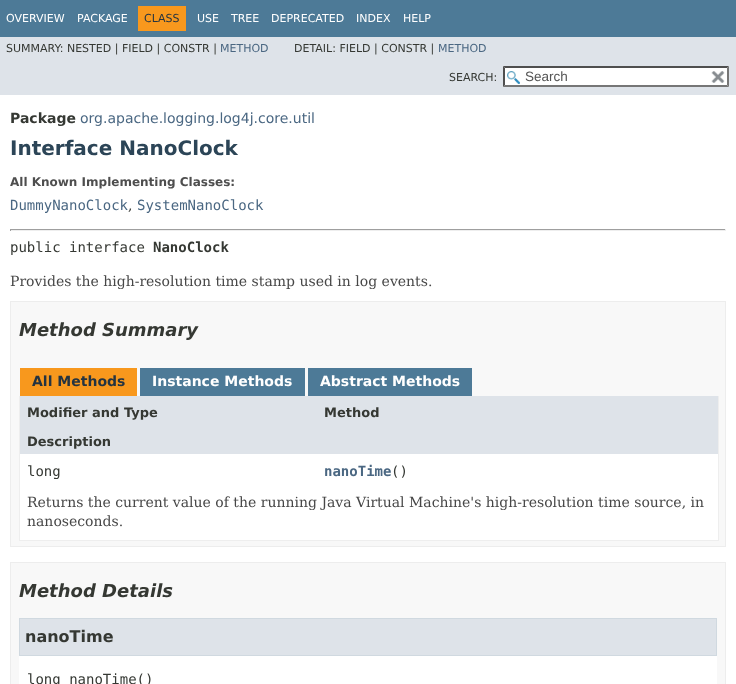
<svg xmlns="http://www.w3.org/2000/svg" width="736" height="684">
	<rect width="100%" height="100%" fill="#FFFFFF" />
	<rect x="0" y="0" width="736" height="37" fill="#4D7A97" />
	<g font-family="DejaVu Sans" font-size="11" fill="#FFFFFF">
		<text x="6" y="22">OVERVIEW</text>
		<text x="77" y="22">PACKAGE</text>
	</g>
	<rect x="138" y="6" width="48" height="25" fill="#F8981D" />
	<text x="144" y="22" font-family="DejaVu Sans" font-size="11" fill="#253441">CLASS</text>
	<g font-family="DejaVu Sans" font-size="11" fill="#FFFFFF">
		<text x="197" y="22">USE</text>
		<text x="231" y="22">TREE</text>
		<text x="271" y="22">DEPRECATED</text>
		<text x="356" y="22">INDEX</text>
		<text x="403" y="22">HELP</text>
	</g>
	<rect x="0" y="37" width="736" height="58" fill="#DEE3E9" />
	<text x="6" y="52" font-family="DejaVu Sans" font-size="11" fill="#353833">SUMMARY: NESTED | FIELD | CONSTR |</text>
	<text x="220" y="52" font-family="DejaVu Sans" font-size="11" fill="#4A6782">METHOD</text>
	<text x="294" y="52" font-family="DejaVu Sans" font-size="11" fill="#353833">DETAIL: FIELD | CONSTR |</text>
	<text x="438" y="52" font-family="DejaVu Sans" font-size="11" fill="#4A6782">METHOD</text>
	<text x="449" y="81" font-family="DejaVu Sans" font-size="11" fill="#353833">SEARCH:</text>
	<rect x="503" y="66" width="226" height="21" fill="#FFFFFF" />
	<image x="507" y="71" width="13" height="13" href="assets/img1.png" />
	<path d="M503 66H729L727 68H505Z" fill="#4F4F4F" />
	<path d="M729 66V87L727 85V68Z" fill="#767676" />
	<path d="M729 87H503L505 85H727Z" fill="#767676" />
	<path d="M503 87V66L505 68V85Z" fill="#4F4F4F" />
	<text x="525" y="81" font-family="Liberation Sans" font-size="13.5" fill="#545454">Search</text>
	<image x="711" y="71" width="14" height="12" href="assets/img2.png" />
	<text x="10" y="123" font-family="DejaVu Sans" font-size="14" font-weight="700" fill="#353833">Package</text>
	<text x="80" y="123" font-family="DejaVu Sans" font-size="14" fill="#4A6782">org.apache.logging.log4j.core.util</text>
	<text x="10" y="155" font-family="DejaVu Sans" font-size="20" font-weight="700" fill="#2C4557">Interface NanoClock</text>
	<text x="10" y="186" font-family="DejaVu Sans" font-size="12" font-weight="700" fill="#4E4E4E">All Known Implementing Classes:</text>
	<text x="10" y="210" font-family="DejaVu Sans Mono" font-size="14" fill="#4A6782">DummyNanoClock</text>
	<text x="128" y="210" font-family="DejaVu Serif" font-size="14" fill="#353833">,</text>
	<text x="137" y="210" font-family="DejaVu Sans Mono" font-size="14" fill="#4A6782">SystemNanoClock</text>
	<rect x="10" y="229" width="716" height="1" fill="#9F9F9F" />
	<rect x="725" y="229" width="1" height="2" fill="#EEEEEE" />
	<rect x="10" y="230" width="716" height="1" fill="#EEEEEE" />
	<rect x="10" y="229" width="1" height="2" fill="#9F9F9F" />
	<text x="10" y="252" font-family="DejaVu Sans Mono" font-size="14" fill="#353833">public interface</text>
	<text x="153" y="252" font-family="DejaVu Sans Mono" font-size="14" font-weight="700" fill="#353833">NanoClock</text>
	<text x="10" y="286" font-family="DejaVu Serif" font-size="14" fill="#474747">Provides the high-resolution time stamp used in log events.</text>
	<rect x="10.5" y="301.5" width="715" height="245" fill="#F8F8F8" stroke="#EDEDED" />
	<text x="19" y="336" font-family="DejaVu Sans" font-size="18" font-weight="700" font-style="italic" fill="#353833">Method Summary</text>
	<rect x="20" y="368" width="117" height="28" fill="#F8981D" />
	<text x="32" y="386" font-family="DejaVu Sans" font-size="14" font-weight="700" fill="#253441">All Methods</text>
	<rect x="140" y="368" width="165" height="28" fill="#4D7A97" />
	<text x="152" y="386" font-family="DejaVu Sans" font-size="14" font-weight="700" fill="#FFFFFF">Instance Methods</text>
	<rect x="308" y="368" width="164" height="28" fill="#4D7A97" />
	<text x="320" y="386" font-family="DejaVu Sans" font-size="14" font-weight="700" fill="#FFFFFF">Abstract Methods</text>
	<rect x="718" y="396" width="1" height="145" fill="#EEEEEE" />
	<rect x="19" y="540" width="700" height="1" fill="#EEEEEE" />
	<rect x="19" y="396" width="1" height="145" fill="#EEEEEE" />
	<rect x="20" y="396" width="698" height="29" fill="#DEE3E9" />
	<g font-family="DejaVu Sans" font-size="13" font-weight="700" fill="#353833">
		<text x="27" y="417">Modifier and Type</text>
		<text x="324" y="417">Method</text>
	</g>
	<rect x="20" y="425" width="698" height="29" fill="#DEE3E9" />
	<text x="27" y="446" font-family="DejaVu Sans" font-size="13" font-weight="700" fill="#353833">Description</text>
	<rect x="20" y="454" width="698" height="31" fill="#FFFFFF" />
	<text x="27" y="476" font-family="DejaVu Sans Mono" font-size="14" fill="#353833">long</text>
	<text x="324" y="476" font-family="DejaVu Sans Mono" font-size="14" font-weight="700" fill="#4A6782">nanoTime</text>
	<text x="391" y="476" font-family="DejaVu Sans Mono" font-size="14" fill="#353833">()</text>
	<rect x="20" y="485" width="698" height="55" fill="#FFFFFF" />
	<g font-family="DejaVu Serif" font-size="14" fill="#474747">
		<text x="27" y="507">Returns the current value of the running Java Virtual Machine's high-resolution time source, in</text>
		<text x="27" y="526">nanoseconds.</text>
	</g>
	<rect x="10.5" y="562.5" width="715" height="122" fill="#F8F8F8" stroke="#EDEDED" />
	<text x="19" y="597" font-family="DejaVu Sans" font-size="18" font-weight="700" font-style="italic" fill="#353833">Method Details</text>
	<rect x="19" y="656" width="698" height="28" fill="#FFFFFF" />
	<rect x="19.5" y="618.5" width="697" height="37" fill="#DEE3E9" stroke="#D0D9E0" />
	<text x="25" y="642" font-family="DejaVu Sans" font-size="16" font-weight="700" fill="#353833">nanoTime</text>
	<text x="27" y="684" font-family="DejaVu Sans Mono" font-size="14" fill="#353833">long nanoTime()</text>
</svg>
